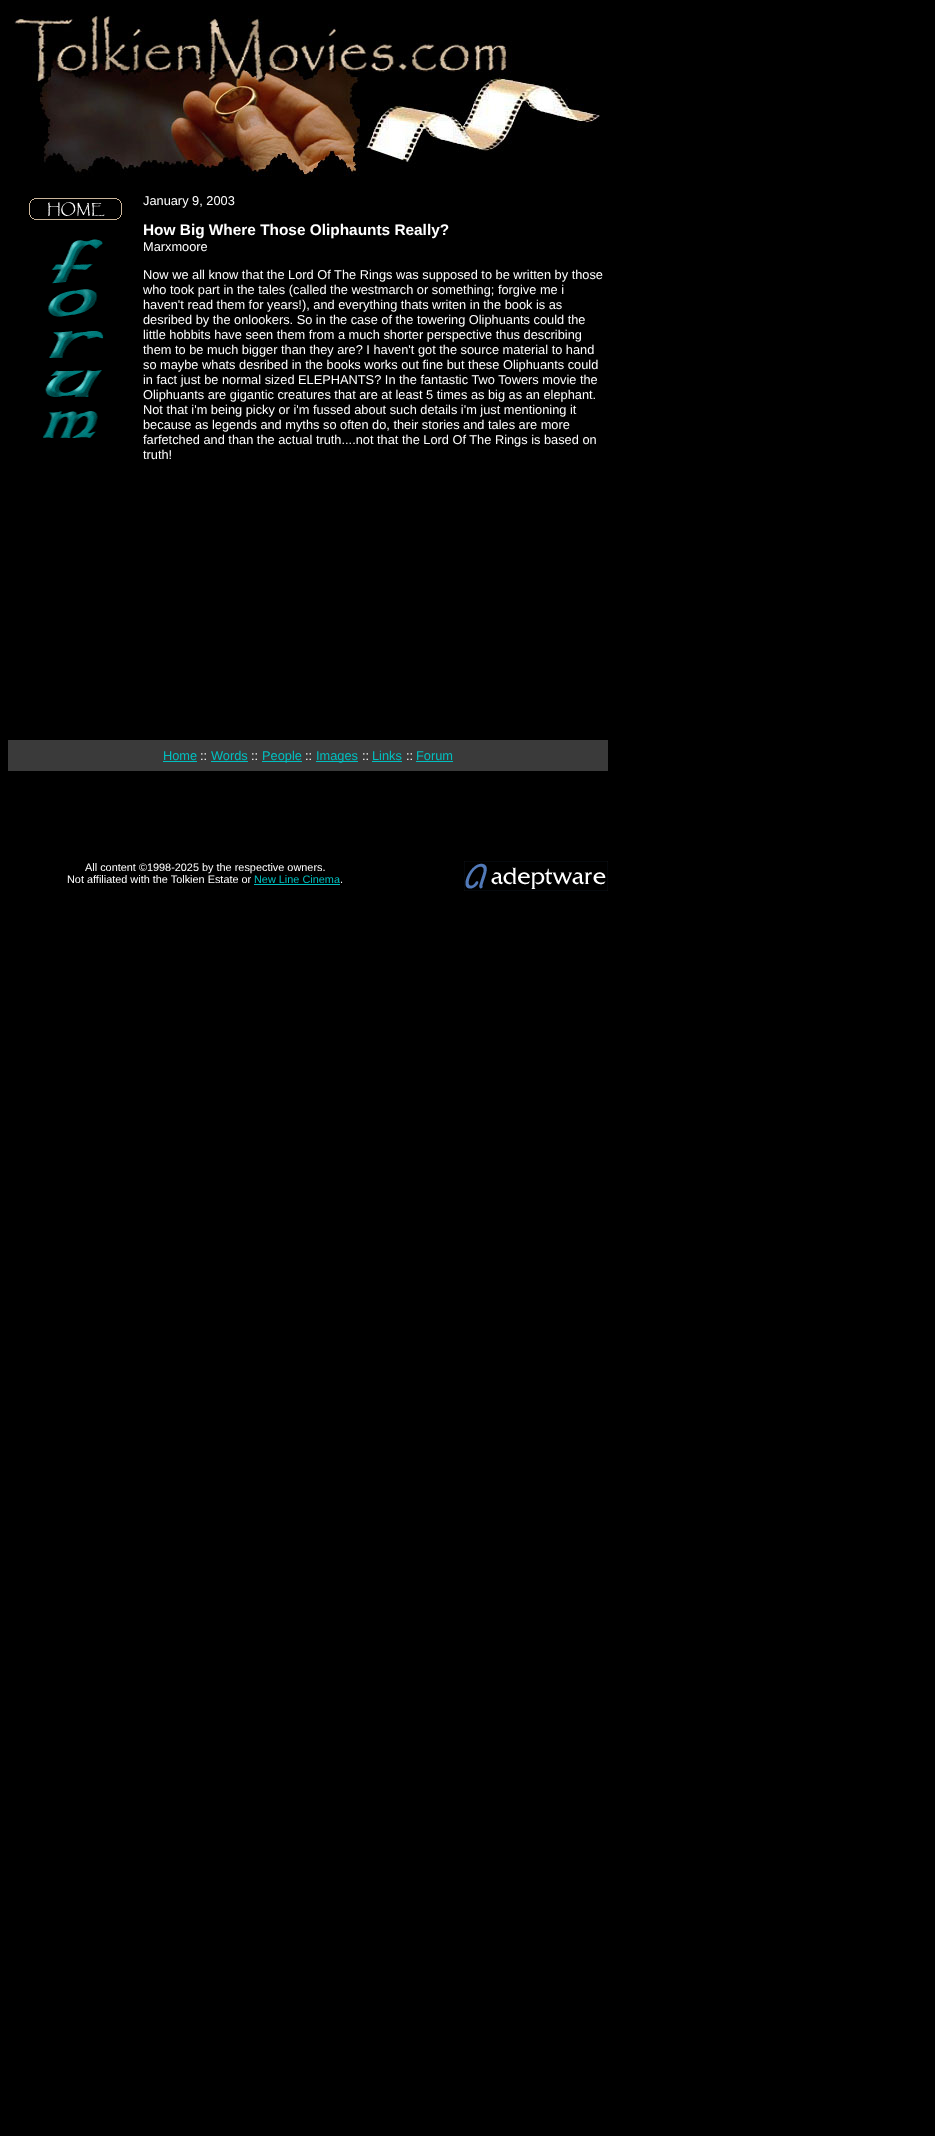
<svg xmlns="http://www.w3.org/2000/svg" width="935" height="2136">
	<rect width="100%" height="100%" fill="#000000" />
	<image x="12" y="16" width="588" height="160" href="assets/img1.png" />
	<image x="29" y="198" width="93" height="22" href="assets/img2.png" />
	<image x="43" y="239" width="61" height="199" href="assets/img3.png" />
	<text x="143" y="205" font-family="Liberation Sans" font-size="12.8" fill="#FFFFFF">January 9, 2003</text>
	<text x="143" y="235" font-family="Liberation Sans" font-size="15.4" font-weight="700" fill="#FFFFFF">How Big Where Those Oliphaunts Really?</text>
	<g font-family="Liberation Sans" font-size="12.8" fill="#FFFFFF">
		<text x="143" y="251">Marxmoore</text>
		<text x="143" y="279">Now we all know that the Lord Of The Rings was supposed to be written by those</text>
		<text x="143" y="294">who took part in the tales (called the westmarch or something; forgive me i</text>
		<text x="143" y="309">haven't read them for years!), and everything thats writen in the book is as</text>
		<text x="143" y="324">desribed by the onlookers. So in the case of the towering Oliphuants could the</text>
		<text x="143" y="339">little hobbits have seen them from a much shorter perspective thus describing</text>
		<text x="143" y="354">them to be much bigger than they are? I haven't got the source material to hand</text>
		<text x="143" y="369">so maybe whats desribed in the books works out fine but these Oliphuants could</text>
		<text x="143" y="384">in fact just be normal sized ELEPHANTS? In the fantastic Two Towers movie the</text>
		<text x="143" y="399">Oliphuants are gigantic creatures that are at least 5 times as big as an elephant.</text>
		<text x="143" y="414">Not that i'm being picky or i'm fussed about such details i'm just mentioning it</text>
		<text x="143" y="429">because as legends and myths so often do, their stories and tales are more</text>
		<text x="143" y="444">farfetched and than the actual truth....not that the Lord Of The Rings is based on</text>
		<text x="143" y="459">truth!</text>
	</g>
	<rect x="8" y="740" width="600" height="31" fill="#3A3A3A" />
	<text x="163" y="760" font-family="Liberation Sans" font-size="12.8" fill="#00C0C0">Home</text>
	<rect x="163" y="761" width="34" height="1" fill="#00C0C0" />
	<text x="200" y="760" font-family="Liberation Sans" font-size="12.8" fill="#FFFFFF">::</text>
	<text x="211" y="760" font-family="Liberation Sans" font-size="12.8" fill="#00C0C0">Words</text>
	<rect x="211" y="761" width="37" height="1" fill="#00C0C0" />
	<text x="251" y="760" font-family="Liberation Sans" font-size="12.8" fill="#FFFFFF">::</text>
	<rect x="262" y="761" width="40" height="1" fill="#00C0C0" />
	<text x="262" y="760" font-family="Liberation Sans" font-size="12.8" fill="#00C0C0">People</text>
	<text x="305" y="760" font-family="Liberation Sans" font-size="12.8" fill="#FFFFFF">::</text>
	<rect x="316" y="761" width="42" height="1" fill="#00C0C0" />
	<text x="316" y="760" font-family="Liberation Sans" font-size="12.8" fill="#00C0C0">Images</text>
	<text x="362" y="760" font-family="Liberation Sans" font-size="12.8" fill="#FFFFFF">::</text>
	<text x="372" y="760" font-family="Liberation Sans" font-size="12.8" fill="#00C0C0">Links</text>
	<rect x="372" y="761" width="30" height="1" fill="#00C0C0" />
	<text x="406" y="760" font-family="Liberation Sans" font-size="12.8" fill="#FFFFFF">::</text>
	<text x="416" y="760" font-family="Liberation Sans" font-size="12.8" fill="#00C0C0">Forum</text>
	<rect x="416" y="761" width="37" height="1" fill="#00C0C0" />
	<g font-family="Liberation Sans" font-size="10.9" fill="#FFFFFF">
		<text x="85" y="871">All content ©1998-2025 by the respective owners.</text>
		<text x="67" y="883">Not affiliated with the Tolkien Estate or</text>
	</g>
	<text x="254" y="883" font-family="Liberation Sans" font-size="10.9" fill="#00C0C0">New Line Cinema</text>
	<text x="340" y="883" font-family="Liberation Sans" font-size="10.9" fill="#FFFFFF">.</text>
	<rect x="254" y="884" width="86" height="1" fill="#00C0C0" />
	<image x="464" y="861" width="144" height="30" href="assets/img4.png" />
</svg>
